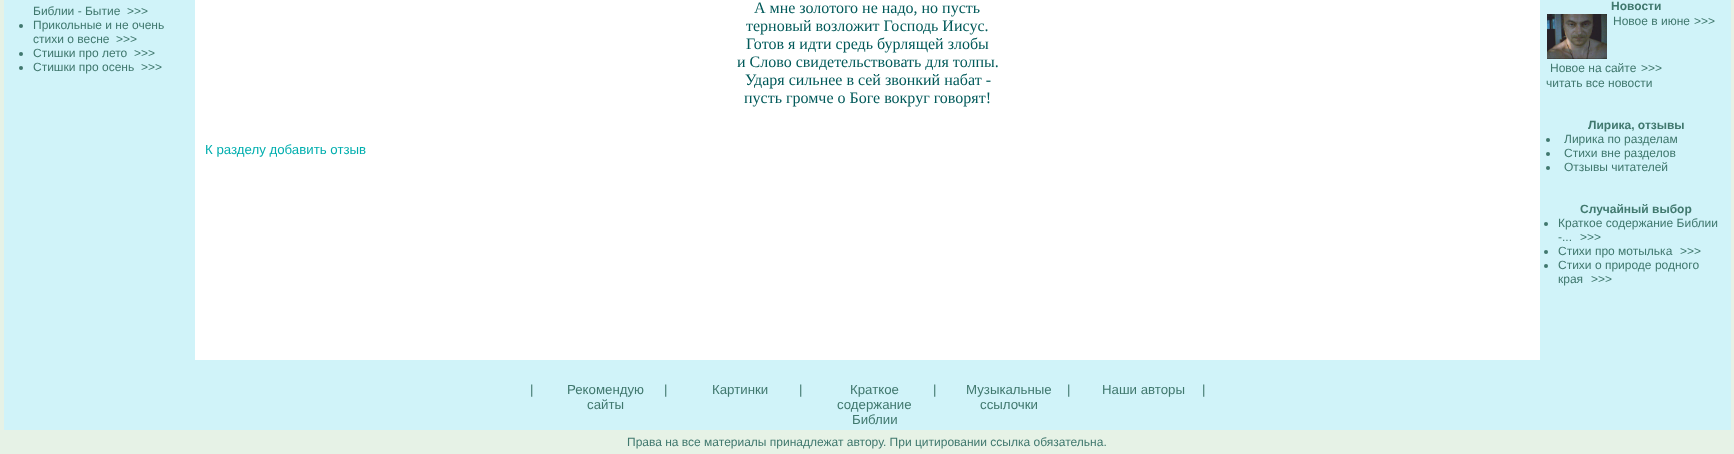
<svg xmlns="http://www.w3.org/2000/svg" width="1734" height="454">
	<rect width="100%" height="100%" fill="#E6F2E6" />
	<rect x="4" y="0" width="191" height="360" fill="#D0F3F9" />
	<g font-family="Liberation Sans" font-size="12" fill="#40786E">
		<text x="33" y="15">Библии - Бытие</text>
		<text x="127" y="15">&gt;&gt;&gt;</text>
	</g>
	<circle cx="21" cy="26" r="2" fill="#40786E" />
	<g font-family="Liberation Sans" font-size="12" fill="#40786E">
		<text x="33" y="29">Прикольные и не очень</text>
		<text x="33" y="43">стихи о весне</text>
		<text x="116" y="43">&gt;&gt;&gt;</text>
	</g>
	<circle cx="21" cy="54" r="2" fill="#40786E" />
	<g font-family="Liberation Sans" font-size="12" fill="#40786E">
		<text x="33" y="57">Стишки про лето</text>
		<text x="134" y="57">&gt;&gt;&gt;</text>
	</g>
	<circle cx="21" cy="68" r="2" fill="#40786E" />
	<g font-family="Liberation Sans" font-size="12" fill="#40786E">
		<text x="33" y="71">Стишки про осень</text>
		<text x="141" y="71">&gt;&gt;&gt;</text>
	</g>
	<rect x="195" y="0" width="1345" height="360" fill="#FFFFFF" />
	<g font-family="Liberation Serif" font-size="16" fill="#005959">
		<text x="754" y="13">А мне золотого не надо, но пусть</text>
		<text x="746" y="31">терновый возложит Господь Иисус.</text>
		<text x="746" y="49">Готов я идти средь бурлящей злобы</text>
		<text x="737" y="67">и Слово свидетельствовать для толпы.</text>
		<text x="745" y="85">Ударя сильнее в сей звонкий набат -</text>
		<text x="744" y="103">пусть громче о Боге вокруг говорят!</text>
	</g>
	<text x="205" y="154" font-family="Liberation Sans" font-size="13.25" fill="#00AEAE">К разделу добавить отзыв</text>
	<rect x="1540" y="0" width="191" height="360" fill="#D0F3F9" />
	<text x="1611" y="10" font-family="Liberation Sans" font-size="12" font-weight="700" fill="#40786E">Новости</text>
	<image x="1547" y="14" width="60" height="45" href="assets/img1.png" />
	<g font-family="Liberation Sans" font-size="12" fill="#40786E">
		<text x="1613" y="25">Новое в июне</text>
		<text x="1694" y="25">&gt;&gt;&gt;</text>
		<text x="1550" y="72">Новое на сайте</text>
		<text x="1641" y="72">&gt;&gt;&gt;</text>
		<text x="1546" y="87">читать все новости</text>
	</g>
	<text x="1588" y="129" font-family="Liberation Sans" font-size="12" font-weight="700" fill="#40786E">Лирика, отзывы</text>
	<circle cx="1548" cy="140" r="2" fill="#40786E" />
	<text x="1564" y="143" font-family="Liberation Sans" font-size="12" fill="#40786E">Лирика по разделам</text>
	<circle cx="1548" cy="154" r="2" fill="#40786E" />
	<text x="1564" y="157" font-family="Liberation Sans" font-size="12" fill="#40786E">Стихи вне разделов</text>
	<circle cx="1548" cy="168" r="2" fill="#40786E" />
	<text x="1564" y="171" font-family="Liberation Sans" font-size="12" fill="#40786E">Отзывы читателей</text>
	<text x="1580" y="213" font-family="Liberation Sans" font-size="12" font-weight="700" fill="#40786E">Случайный выбор</text>
	<circle cx="1546" cy="224" r="2" fill="#40786E" />
	<g font-family="Liberation Sans" font-size="12" fill="#40786E">
		<text x="1558" y="227">Краткое содержание Библии</text>
		<text x="1558" y="241">-...</text>
		<text x="1580" y="241">&gt;&gt;&gt;</text>
	</g>
	<circle cx="1546" cy="252" r="2" fill="#40786E" />
	<g font-family="Liberation Sans" font-size="12" fill="#40786E">
		<text x="1558" y="255">Стихи про мотылька</text>
		<text x="1680" y="255">&gt;&gt;&gt;</text>
	</g>
	<circle cx="1546" cy="266" r="2" fill="#40786E" />
	<g font-family="Liberation Sans" font-size="12" fill="#40786E">
		<text x="1558" y="269">Стихи о природе родного</text>
		<text x="1558" y="283">края</text>
		<text x="1591" y="283">&gt;&gt;&gt;</text>
	</g>
	<rect x="4" y="360" width="1727" height="70" fill="#D0F3F9" />
	<g font-family="Liberation Sans" font-size="13.25" fill="#40786E">
		<text x="530" y="394">|</text>
		<text x="567" y="394">Рекомендую</text>
		<text x="587" y="409">сайты</text>
		<text x="664" y="394">|</text>
		<text x="712" y="394">Картинки</text>
		<text x="799" y="394">|</text>
		<text x="850" y="394">Краткое</text>
		<text x="837" y="409">содержание</text>
		<text x="852" y="424">Библии</text>
		<text x="933" y="394">|</text>
		<text x="966" y="394">Музыкальные</text>
		<text x="980" y="409">ссылочки</text>
		<text x="1067" y="394">|</text>
		<text x="1102" y="394">Наши авторы</text>
		<text x="1202" y="394">|</text>
	</g>
	<text x="627" y="446" font-family="Liberation Sans" font-size="12" fill="#40786E">Права на все материалы принадлежат автору. При цитировании ссылка обязательна.</text>
</svg>
